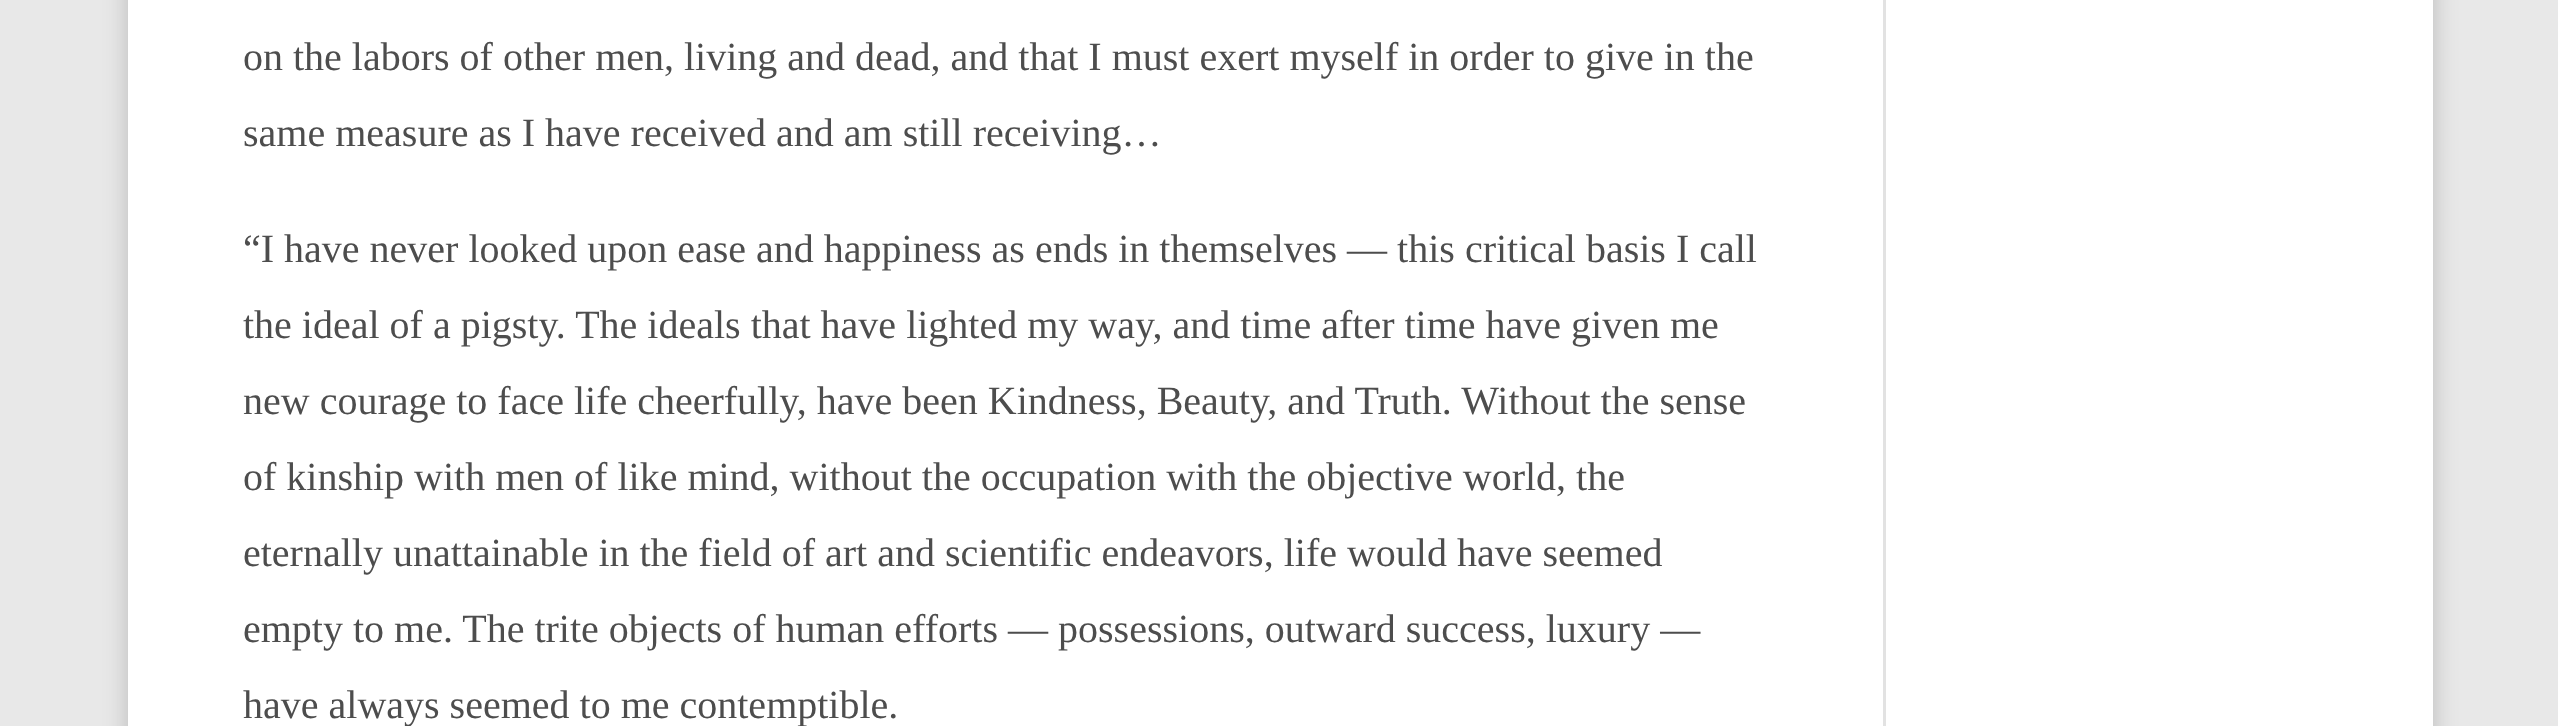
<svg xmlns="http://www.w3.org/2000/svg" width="2558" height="726">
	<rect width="100%" height="100%" fill="#E8E8E8" />
	<rect x="128" y="-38" width="2305" height="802" fill="#000000" fill-opacity="0.2" filter="blur(12.5px)" />
	<rect x="128" y="0" width="2305" height="726" fill="#FFFFFF" />
	<g font-family="Liberation Serif" font-size="40" fill="#4D4D4D">
		<text x="243" y="70">on the labors of other men, living and dead, and that I must exert myself in order to give in the</text>
		<text x="243" y="146">same measure as I have received and am still receiving…</text>
		<text x="243" y="262">“I have never looked upon ease and happiness as ends in themselves — this critical basis I call</text>
		<text x="243" y="338">the ideal of a pigsty. The ideals that have lighted my way, and time after time have given me</text>
		<text x="243" y="414">new courage to face life cheerfully, have been Kindness, Beauty, and Truth. Without the sense</text>
		<text x="243" y="490">of kinship with men of like mind, without the occupation with the objective world, the</text>
		<text x="243" y="566">eternally unattainable in the field of art and scientific endeavors, life would have seemed</text>
		<text x="243" y="642">empty to me. The trite objects of human efforts — possessions, outward success, luxury —</text>
		<text x="243" y="718">have always seemed to me contemptible.</text>
	</g>
	<rect x="1883" y="0" width="3" height="726" fill="#E2E2E2" />
</svg>
